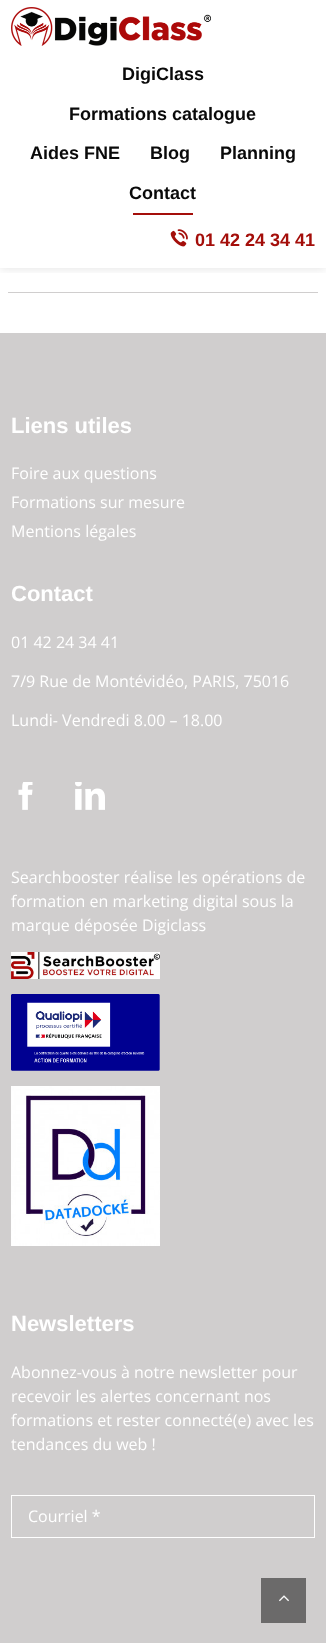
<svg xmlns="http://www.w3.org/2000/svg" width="326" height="1643">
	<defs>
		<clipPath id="clip1"><rect x="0" y="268" width="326" height="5" /></clipPath>
	</defs>
	<rect width="100%" height="100%" fill="#FFFFFF" />
	<g clip-path="url(#clip1)">
		<rect x="0" y="1" width="326" height="268" fill="#000000" fill-opacity="0.1" filter="blur(5px)" />
	</g>
	<image x="11" y="7" width="200" height="39" href="assets/img1.png" />
	<g font-family="Liberation Sans" font-size="18" font-weight="700" fill="#0A0A0A">
		<text x="122" y="80">DigiClass</text>
		<text x="69" y="120">Formations catalogue</text>
		<text x="30" y="159">Aides FNE</text>
		<text x="150" y="159">Blog</text>
		<text x="220" y="159">Planning</text>
		<text x="129" y="199">Contact</text>
	</g>
	<rect x="133" y="213" width="60" height="2" fill="#A40E0A" />
	<image x="170" y="229" width="18" height="18" href="assets/img2.png" />
	<text x="195" y="246" font-family="Liberation Sans" font-size="18" font-weight="700" fill="#A40E0A">01 42 24 34 41</text>
	<rect x="8" y="292" width="310" height="1" fill="#D0CECE" />
	<rect x="0" y="333" width="326" height="1310" fill="#D0CECE" />
	<text x="11" y="433" font-family="Liberation Sans" font-size="22" font-weight="700" fill="#FFFFFF">Liens utiles</text>
	<g font-family="Open Sans" font-size="16" fill="#FFFFFF">
		<text x="11" y="479">Foire aux questions</text>
		<text x="11" y="508">Formations sur mesure</text>
		<text x="11" y="537">Mentions légales</text>
	</g>
	<text x="11" y="601" font-family="Liberation Sans" font-size="22" font-weight="700" fill="#FFFFFF">Contact</text>
	<g font-family="Open Sans" font-size="16" fill="#FFFFFF">
		<text x="11" y="648">01 42 24 34 41</text>
		<text x="11" y="687">7/9 Rue de Montévidéo, PARIS, 75016</text>
		<text x="11" y="726">Lundi- Vendredi 8.00 – 18.00</text>
	</g>
	<image x="18" y="782" width="15" height="28" href="assets/img3.png" />
	<image x="75" y="782" width="30" height="28" href="assets/img4.png" />
	<g font-family="Open Sans" font-size="16" fill="#FFFFFF">
		<text x="11" y="883">Searchbooster réalise les opérations de</text>
		<text x="11" y="907">formation en marketing digital sous la</text>
		<text x="11" y="931">marque déposée Digiclass</text>
	</g>
	<image x="11" y="952" width="149" height="27" href="assets/img5.png" />
	<image x="11" y="994" width="149" height="77" href="assets/img6.png" />
	<image x="11" y="1086" width="149" height="160" href="assets/img7.png" />
	<text x="11" y="1331" font-family="Liberation Sans" font-size="22" font-weight="700" fill="#FFFFFF">Newsletters</text>
	<g font-family="Open Sans" font-size="16" fill="#FFFFFF">
		<text x="11" y="1378">Abonnez-vous à notre newsletter pour</text>
		<text x="11" y="1402">recevoir les alertes concernant nos</text>
		<text x="11" y="1426">formations et rester connecté(e) avec les</text>
		<text x="11" y="1450">tendances du web !</text>
	</g>
	<rect x="11.5" y="1495.5" width="303" height="42" fill="none" stroke="#FFFFFF" />
	<text x="28" y="1522" font-family="Open Sans" font-size="16" fill="#FFFFFF">Courriel *</text>
	<rect x="261" y="1578" width="45" height="45" fill="#6B6A6A" />
	<image x="279" y="1595" width="10" height="7" href="assets/img8.png" />
</svg>
